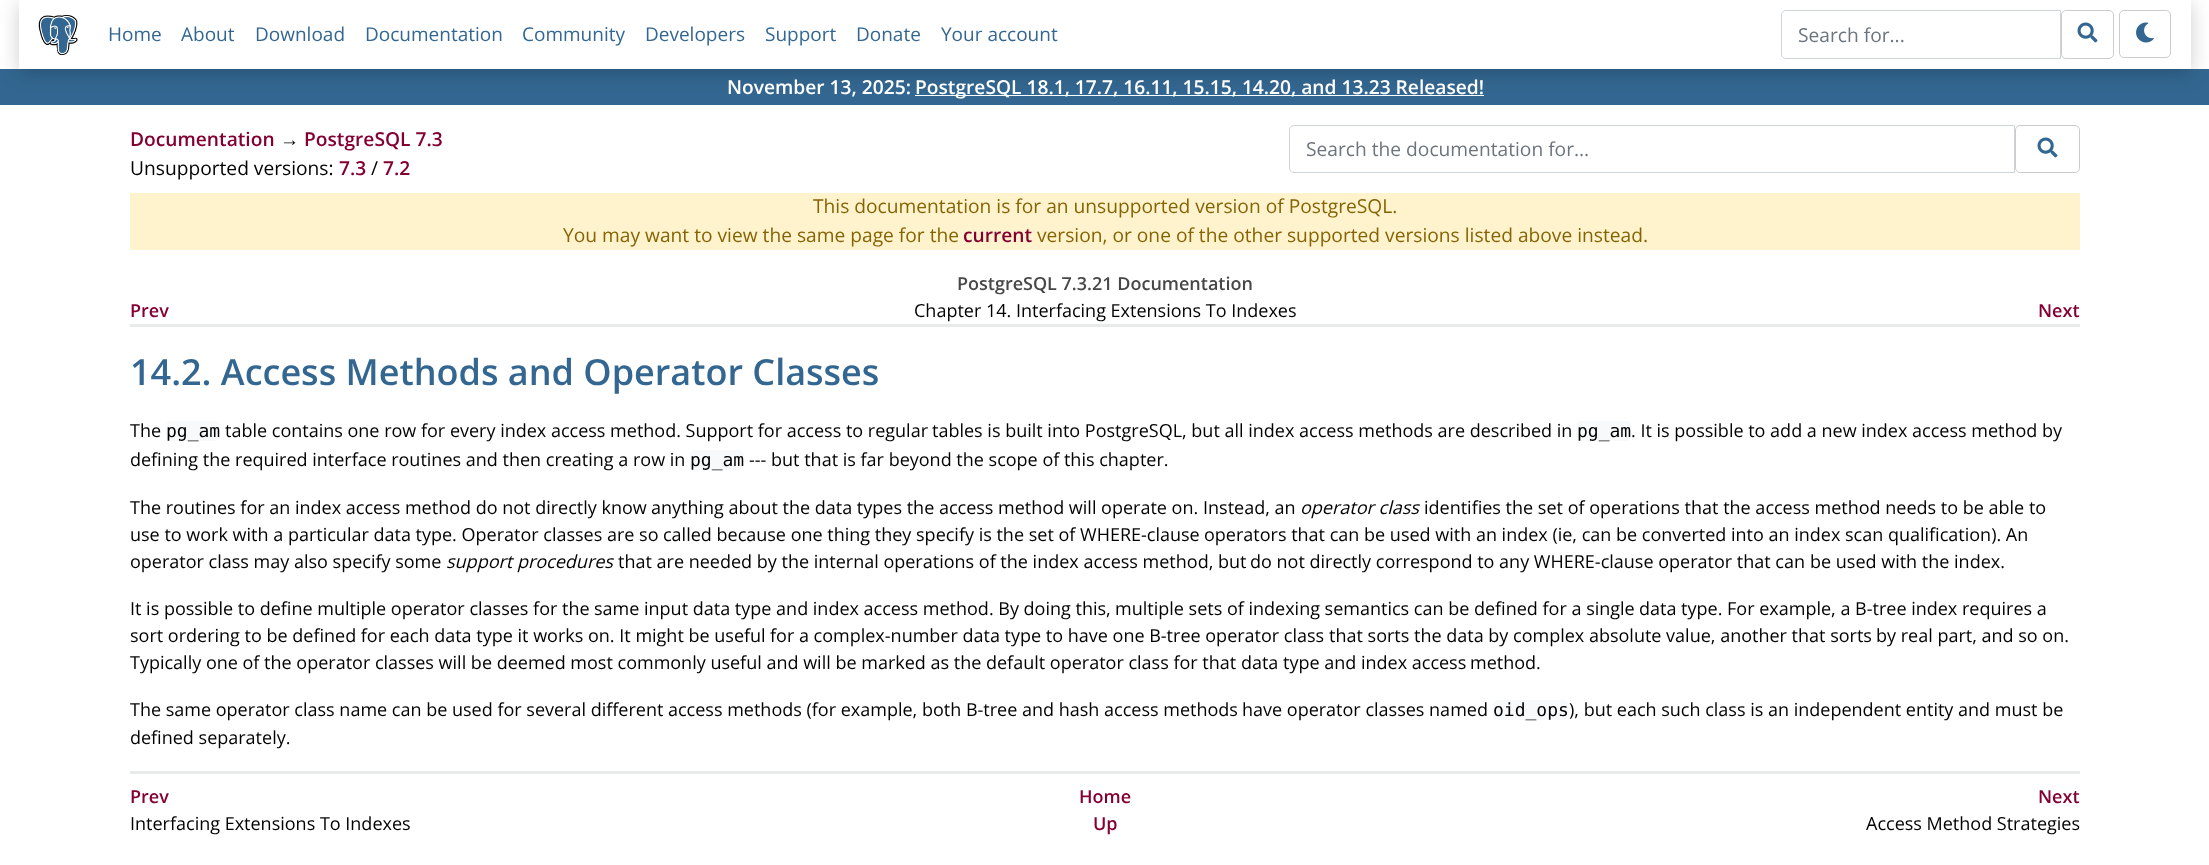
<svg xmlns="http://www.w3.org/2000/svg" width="2209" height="865">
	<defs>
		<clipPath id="clip1"><path d="M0 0H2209V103H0ZM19 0H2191V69H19Z" clip-rule="evenodd" /></clipPath>
	</defs>
	<rect width="100%" height="100%" fill="#FFFFFF" />
	<rect x="0" y="69" width="2209" height="36" fill="#336791" />
	<g clip-path="url(#clip1)">
		<rect x="19" y="4" width="2172" height="69" fill="#000000" fill-opacity="0.2" filter="blur(9.5px)" />
	</g>
	<image x="38" y="15" width="40" height="40" href="assets/img1.png" />
	<g font-family="Open Sans" font-size="19" fill="#336791">
		<text x="108" y="41">Home</text>
		<text x="181" y="41">About</text>
		<text x="255" y="41">Download</text>
		<text x="365" y="41">Documentation</text>
		<text x="522" y="41">Community</text>
		<text x="645" y="41">Developers</text>
		<text x="765" y="41">Support</text>
		<text x="856" y="41">Donate</text>
		<text x="941" y="41">Your account</text>
	</g>
	<path d="M1786 10.5H2060.5V58.5H1786C1783.5 58.5 1781.5 56.5 1781.5 54V15C1781.5 12.5 1783.5 10.5 1786 10.5Z" fill="none" stroke="#CED4DA" />
	<text x="1798" y="42" font-family="Open Sans" font-size="19.2" fill="#6C757D">Search for...</text>
	<rect x="2061.5" y="10.5" width="52" height="48" rx="4.5" fill="none" stroke="#CCCCCC" />
	<image x="2077" y="22" width="21" height="21" href="assets/img2.png" />
	<rect x="2119.5" y="10.5" width="51" height="47" rx="4.5" fill="none" stroke="#CCCCCC" />
	<image x="2136" y="22" width="18" height="21" href="assets/img3.png" />
	<text x="727" y="94" font-family="Open Sans" font-size="19.2" font-weight="600" fill="#FFFFFF">November 13, 2025:</text>
	<rect x="915" y="95" width="569" height="1" fill="#FFFFFF" />
	<text x="915" y="94" font-family="Open Sans" font-size="19.2" font-weight="600" fill="#FFFFFF">PostgreSQL 18.1, 17.7, 16.11, 15.15, 14.20, and 13.23 Released!</text>
	<text x="130" y="146" font-family="Open Sans" font-size="19.2" font-weight="600" fill="#840032">Documentation</text>
	<text x="280" y="146" font-family="Liberation Sans" font-size="19.2" fill="#000000">→</text>
	<text x="304" y="146" font-family="Open Sans" font-size="19.2" font-weight="600" fill="#840032">PostgreSQL 7.3</text>
	<text x="130" y="175" font-family="Open Sans" font-size="19.2" fill="#000000">Unsupported versions:</text>
	<text x="339" y="175" font-family="Open Sans" font-size="19.2" font-weight="600" fill="#840032">7.3</text>
	<text x="371" y="175" font-family="Open Sans" font-size="19.2" fill="#000000">/</text>
	<text x="383" y="175" font-family="Open Sans" font-size="19.2" font-weight="600" fill="#840032">7.2</text>
	<path d="M1294 125.5H2014.5V172.5H1294C1291.5 172.5 1289.5 170.5 1289.5 168V130C1289.5 127.5 1291.5 125.5 1294 125.5Z" fill="none" stroke="#CED4DA" />
	<text x="1306" y="156" font-family="Open Sans" font-size="19.2" fill="#6C757D">Search the documentation for...</text>
	<rect x="2015.5" y="125.5" width="64" height="47" rx="4.5" fill="none" stroke="#CCCCCC" />
	<image x="2037" y="137" width="21" height="21" href="assets/img2.png" />
	<rect x="130" y="193" width="1950" height="57" fill="#FFF3CD" />
	<g font-family="Open Sans" font-size="19.2" fill="#856404">
		<text x="813" y="213">This documentation is for an unsupported version of PostgreSQL.</text>
		<text x="563" y="242">You may want to view the same page for the</text>
	</g>
	<text x="963" y="242" font-family="Open Sans" font-size="19.2" font-weight="600" fill="#840032">current</text>
	<text x="1037" y="242" font-family="Open Sans" font-size="19.2" fill="#856404">version, or one of the other supported versions listed above instead.</text>
	<text x="957" y="290" font-family="Open Sans" font-size="18" font-weight="600" fill="#474747">PostgreSQL 7.3.21 Documentation</text>
	<text x="130" y="317" font-family="Open Sans" font-size="18" font-weight="600" fill="#840032">Prev</text>
	<text x="914" y="317" font-family="Open Sans" font-size="18" fill="#000000">Chapter 14. Interfacing Extensions To Indexes</text>
	<text x="2038" y="317" font-family="Open Sans" font-size="18" font-weight="600" fill="#840032">Next</text>
	<rect x="130" y="324" width="1950" height="3" fill="#E7EAE8" />
	<text x="130" y="385" font-family="Open Sans" font-size="36" font-weight="600" fill="#336791">14.2. Access Methods and Operator Classes</text>
	<text x="130" y="437" font-family="Open Sans" font-size="18" fill="#000000">The</text>
	<rect x="166" y="421" width="54" height="20" rx="5" fill="#F8F9FA" />
	<text x="166" y="437" font-family="DejaVu Sans Mono" font-size="18" fill="#000000">pg_am</text>
	<g font-family="Open Sans" font-size="18" fill="#000000">
		<text x="225" y="437">table contains one row for every index access method. Support for access to regular</text>
		<text x="932" y="437">tables is built into PostgreSQL, but all index access methods are described in</text>
	</g>
	<rect x="1576" y="421" width="55" height="20" rx="5" fill="#F8F9FA" />
	<text x="1577" y="437" font-family="DejaVu Sans Mono" font-size="18" fill="#000000">pg_am</text>
	<g font-family="Open Sans" font-size="18" fill="#000000">
		<text x="1631" y="437">. It is possible to add a new index access method by</text>
		<text x="130" y="466">defining the required interface routines and then creating a row in</text>
	</g>
	<rect x="690" y="450" width="54" height="20" rx="5" fill="#F8F9FA" />
	<text x="690" y="466" font-family="DejaVu Sans Mono" font-size="18" fill="#000000">pg_am</text>
	<g font-family="Open Sans" font-size="18" fill="#000000">
		<text x="749" y="466">--- but that is far beyond the scope of this chapter.</text>
		<text x="130" y="514">The routines for an index access method do not directly know</text>
		<text x="651" y="514">anything about the data types the access method will operate on.</text>
		<text x="1203" y="514">Instead, an</text>
	</g>
	<text x="1300" y="514" font-family="Open Sans" font-size="18" font-style="italic" fill="#000000">operator class</text>
	<g font-family="Open Sans" font-size="18" fill="#000000">
		<text x="1424" y="514">identifies the set of operations that the access method needs to be able to</text>
		<text x="130" y="541">use to work with a particular data type. Operator classes are so</text>
		<text x="663" y="541">called because one thing they specify is the set of WHERE-clause</text>
		<text x="1204" y="541">operators that can be used with an index (ie, can be converted</text>
		<text x="1731" y="541">into an index scan qualification). An</text>
		<text x="130" y="568">operator class may also specify some</text>
	</g>
	<text x="446" y="568" font-family="Open Sans" font-size="18" font-style="italic" fill="#000000">support procedures</text>
	<g font-family="Open Sans" font-size="18" fill="#000000">
		<text x="618" y="568">that are needed by the internal operations of the index access method, but</text>
		<text x="1250" y="568">do not directly correspond to any WHERE-clause operator that can</text>
		<text x="1810" y="568">be used with the index.</text>
		<text x="130" y="615">It is possible to define multiple operator classes for the</text>
		<text x="594" y="615">same input data type and index access method. By doing this,</text>
		<text x="1115" y="615">multiple sets of indexing semantics can be defined for a single</text>
		<text x="1639" y="615">data type. For example, a B-tree index requires a</text>
		<text x="130" y="642">sort ordering to be defined for each data type it works on. It might be useful</text>
		<text x="770" y="642">for a complex-number data type to have one B-tree operator class</text>
		<text x="1329" y="642">that sorts the data by complex absolute value, another that sorts</text>
		<text x="1876" y="642">by real part, and so on.</text>
		<text x="130" y="669">Typically one of the operator classes will be deemed most commonly useful and will be marked as the</text>
		<text x="986" y="669">default operator class for that data type and index access</text>
		<text x="1470" y="669">method.</text>
		<text x="130" y="716">The same operator class name can be used for several different</text>
		<text x="668" y="716">access methods (for example, both B-tree and hash access methods</text>
		<text x="1242" y="716">have operator classes named</text>
	</g>
	<rect x="1493" y="700" width="76" height="20" rx="5" fill="#F8F9FA" />
	<text x="1493" y="716" font-family="DejaVu Sans Mono" font-size="18" fill="#000000">oid_ops</text>
	<g font-family="Open Sans" font-size="18" fill="#000000">
		<text x="1569" y="716">), but each such class is an independent entity and must be</text>
		<text x="130" y="744">defined separately.</text>
	</g>
	<rect x="130" y="771" width="1950" height="3" fill="#E7EAE8" />
	<g font-family="Open Sans" font-size="18" font-weight="600" fill="#840032">
		<text x="130" y="803">Prev</text>
		<text x="1079" y="803">Home</text>
		<text x="2038" y="803">Next</text>
	</g>
	<text x="130" y="830" font-family="Open Sans" font-size="18" fill="#000000">Interfacing Extensions To Indexes</text>
	<text x="1093" y="830" font-family="Open Sans" font-size="18" font-weight="600" fill="#840032">Up</text>
	<text x="1866" y="830" font-family="Open Sans" font-size="18" fill="#000000">Access Method Strategies</text>
</svg>
